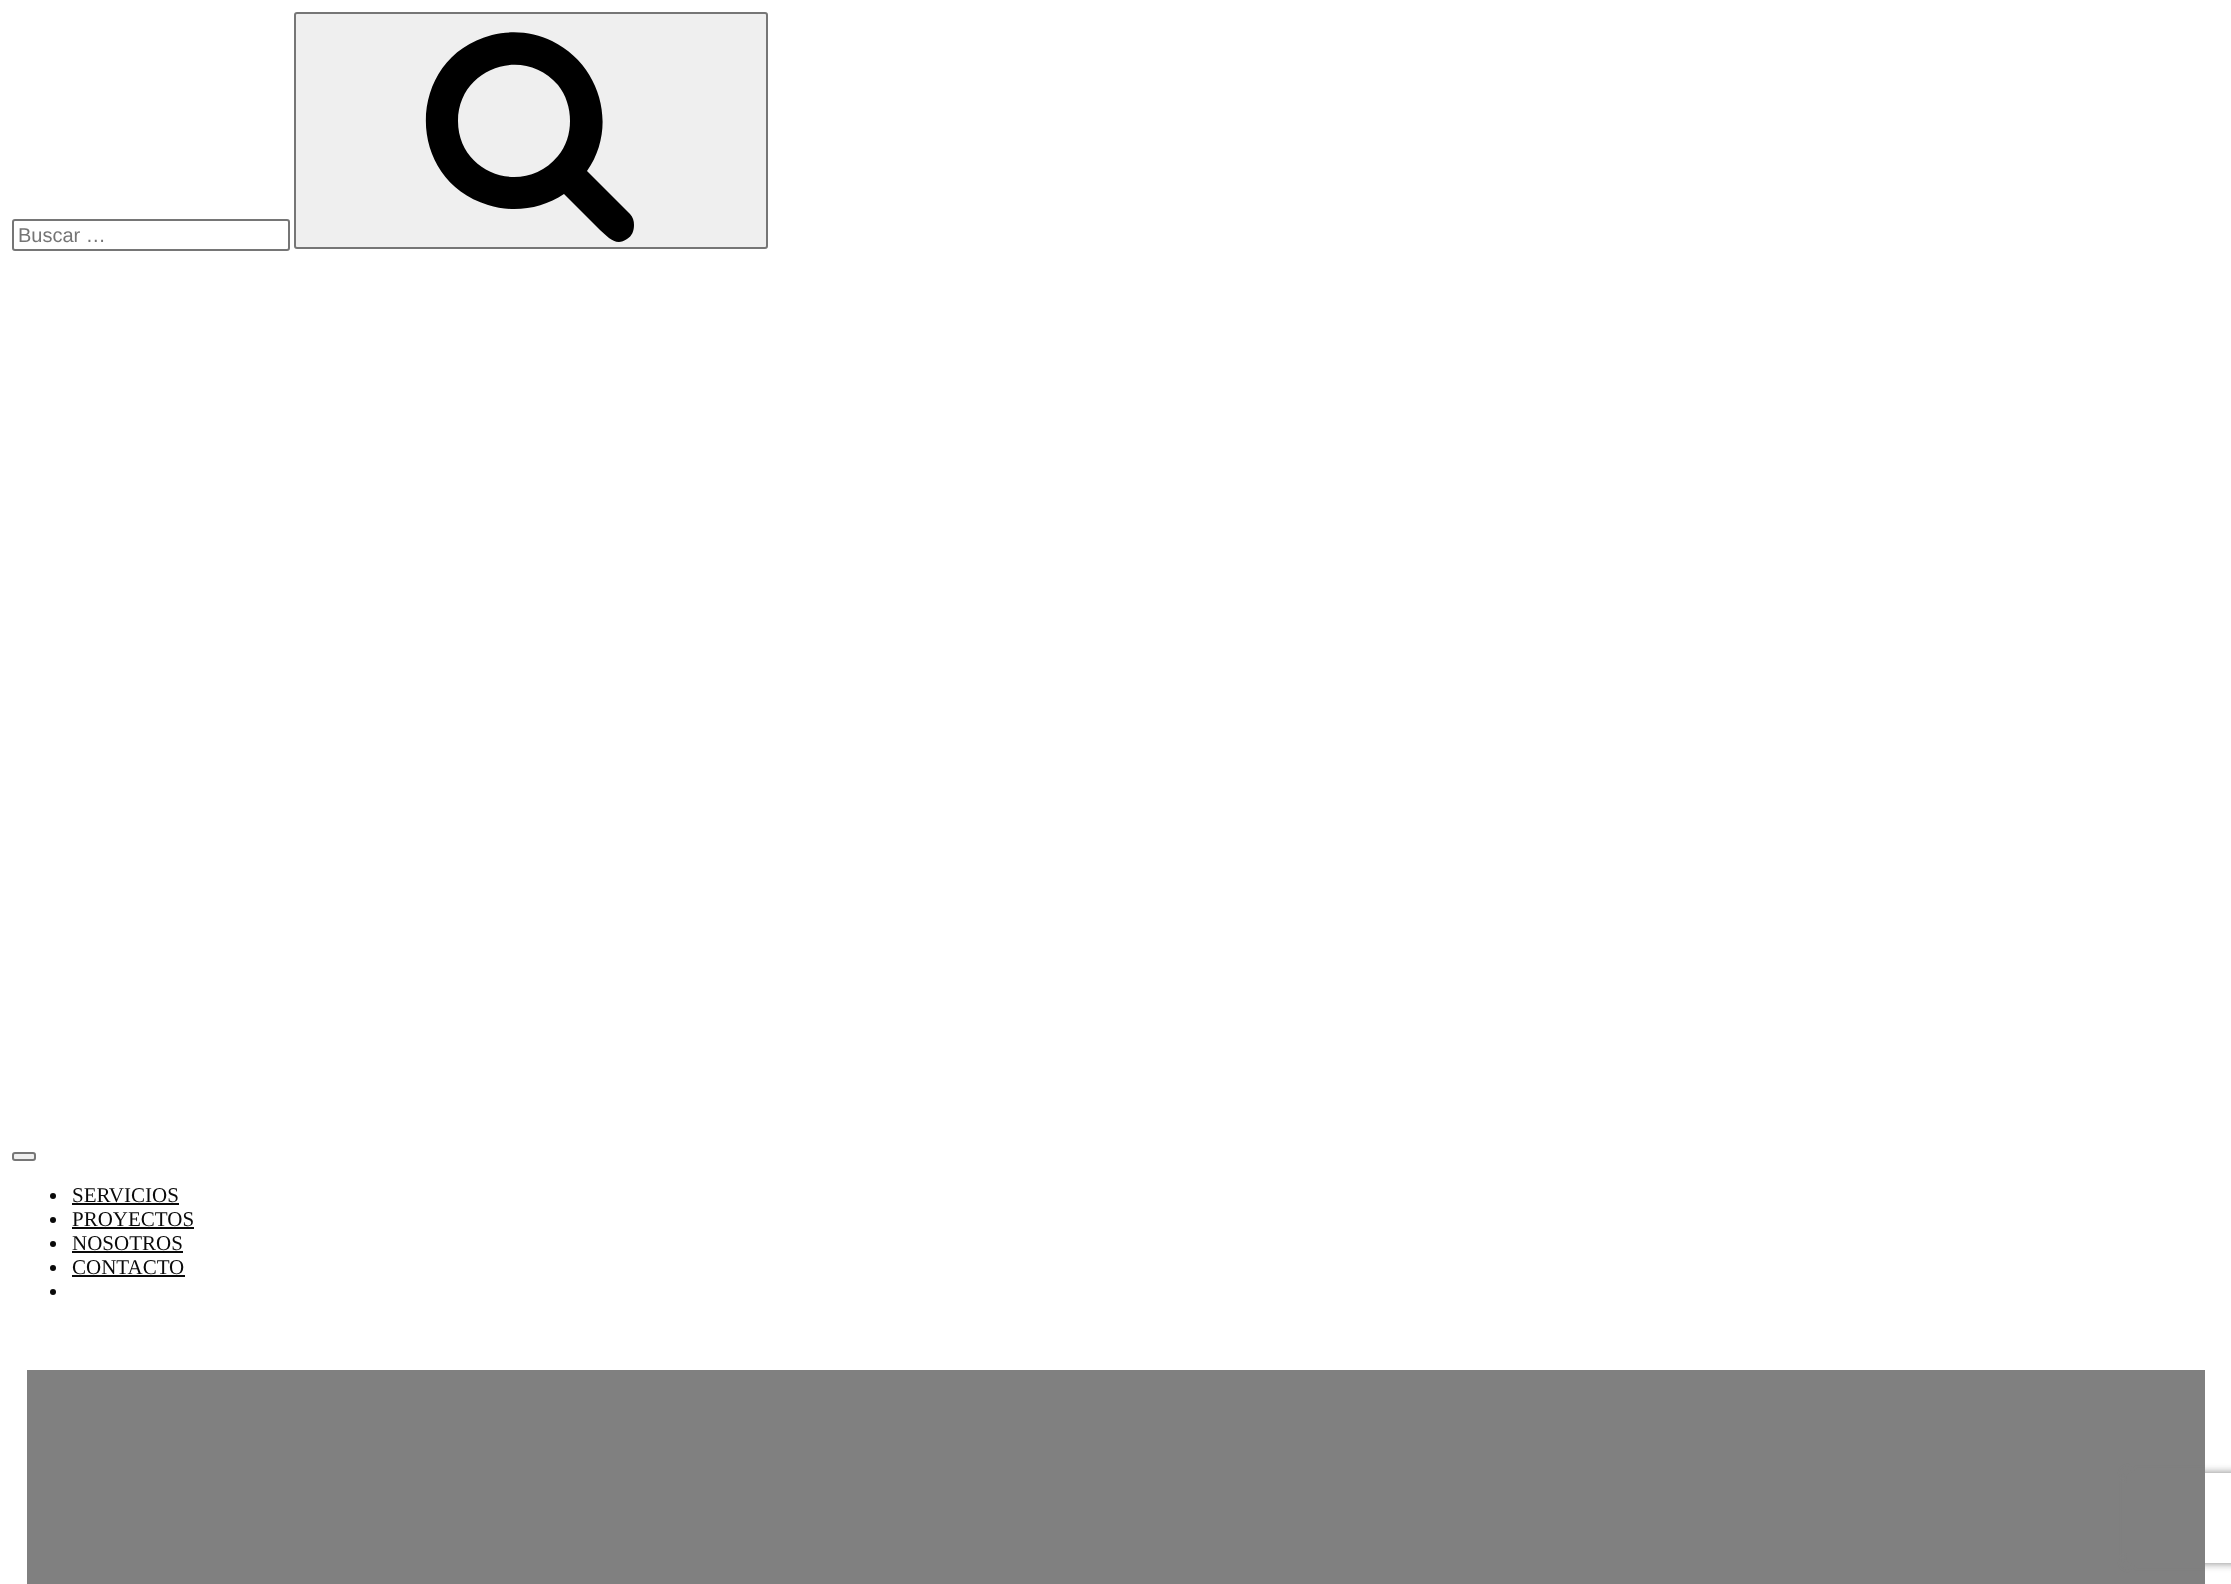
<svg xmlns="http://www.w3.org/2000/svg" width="2231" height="1584">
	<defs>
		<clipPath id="clip1"><path d="M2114 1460H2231V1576H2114ZM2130 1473H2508C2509.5 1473 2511 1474.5 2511 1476V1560C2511 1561.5 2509.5 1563 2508 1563H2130C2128.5 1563 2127 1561.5 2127 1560V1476C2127 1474.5 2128.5 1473 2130 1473Z" clip-rule="evenodd" /></clipPath>
	</defs>
	<rect width="100%" height="100%" fill="#FFFFFF" />
	<rect x="13" y="220" width="276" height="30" rx="2" fill="none" stroke="#767676" stroke-width="2" />
	<text x="18" y="242" font-family="Liberation Sans" font-size="20" fill="#757575">Buscar …</text>
	<rect x="295" y="13" width="472" height="235" rx="2" fill="#EFEFEF" stroke="#767676" stroke-width="2" />
	<path d="M570 121C570 108 566 95 558 85C524 45 458 68 458 121C458 174 524 197 558 156C566 146 570 134 570 121ZM634 225C634 231 632 236 627 239C616 247 608 237 600 230L564 194C542 209 513 213 488 205C403 179 406 57 492 35C512 30 534 32 552 41C601 65 618 127 587 171L630 214C633 217 634 221 634 225Z" fill="#000000" />
	<rect x="13" y="1153" width="22" height="7" rx="2" fill="#EFEFEF" stroke="#767676" stroke-width="2" />
	<circle cx="53" cy="1196" r="3" fill="#0A0A0A" />
	<text x="72" y="1202" font-family="Liberation Serif" font-size="21" fill="#0A0A0A">SERVICIOS</text>
	<rect x="72" y="1203" width="107" height="2" fill="#0A0A0A" />
	<circle cx="53" cy="1220" r="3" fill="#0A0A0A" />
	<text x="72" y="1226" font-family="Liberation Serif" font-size="21" fill="#0A0A0A">PROYECTOS</text>
	<rect x="72" y="1227" width="122" height="2" fill="#0A0A0A" />
	<circle cx="53" cy="1244" r="3" fill="#0A0A0A" />
	<text x="72" y="1250" font-family="Liberation Serif" font-size="21" fill="#0A0A0A">NOSOTROS</text>
	<rect x="72" y="1251" width="111" height="2" fill="#0A0A0A" />
	<circle cx="53" cy="1268" r="3" fill="#0A0A0A" />
	<text x="72" y="1274" font-family="Liberation Serif" font-size="21" fill="#0A0A0A">CONTACTO</text>
	<rect x="72" y="1275" width="113" height="2" fill="#0A0A0A" />
	<circle cx="53" cy="1292" r="3" fill="#0A0A0A" />
	<rect x="27" y="1370" width="2178" height="214" fill="#808080" />
	<g clip-path="url(#clip1)">
		<rect x="2127" y="1473" width="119" height="90" rx="3" fill="#808080" filter="blur(4px)" />
	</g>
</svg>
